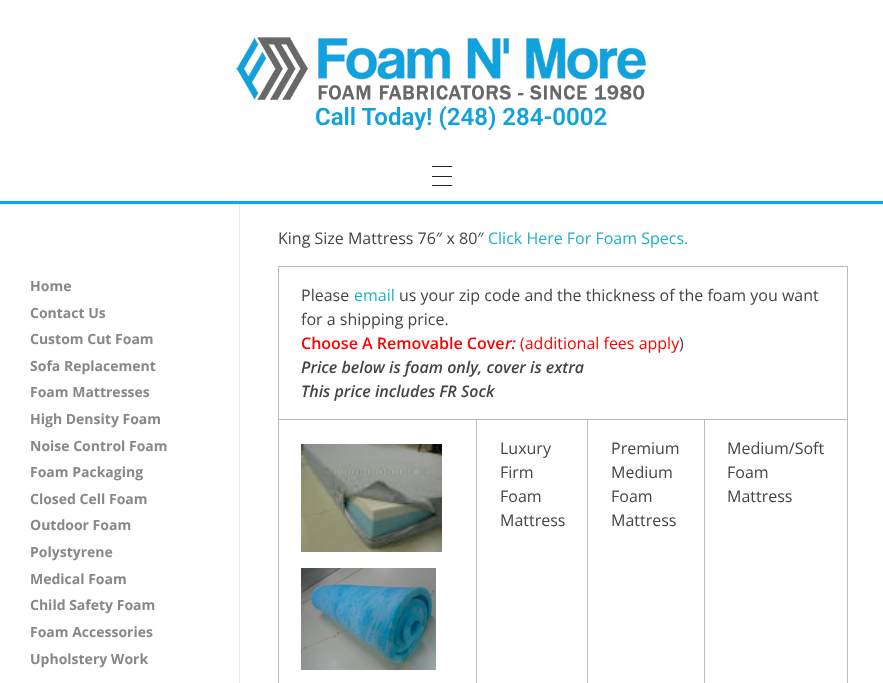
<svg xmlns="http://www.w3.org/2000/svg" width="883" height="683">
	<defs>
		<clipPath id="clip1"><rect x="231" y="104" width="376" height="26" /></clipPath>
	</defs>
	<rect width="100%" height="100%" fill="#FFFFFF" />
	<image x="236" y="37" width="415" height="63" href="assets/img1.png" />
	<g clip-path="url(#clip1)">
		<text x="315" y="125" font-family="Roboto" font-size="24" font-weight="600" fill="#10A2DD">Call Today! (248) 284-0002</text>
	</g>
	<rect x="432" y="166" width="20" height="1" fill="#222222" />
	<rect x="432" y="176" width="20" height="1" fill="#222222" />
	<rect x="432" y="185" width="20" height="1" fill="#222222" />
	<rect x="0" y="201" width="883" height="3" fill="#00A8FF" />
	<rect x="239" y="204" width="1" height="479" fill="#EAEAEA" />
	<g font-family="Open Sans" font-size="14" font-weight="700" fill="#888888">
		<text x="30" y="291">Home</text>
		<text x="30" y="318">Contact Us</text>
		<text x="30" y="344">Custom Cut Foam</text>
		<text x="30" y="371">Sofa Replacement</text>
		<text x="30" y="397">Foam Mattresses</text>
		<text x="30" y="424">High Density Foam</text>
		<text x="30" y="451">Noise Control Foam</text>
		<text x="30" y="477">Foam Packaging</text>
		<text x="30" y="504">Closed Cell Foam</text>
		<text x="30" y="530">Outdoor Foam</text>
		<text x="30" y="557">Polystyrene</text>
		<text x="30" y="584">Medical Foam</text>
		<text x="30" y="610">Child Safety Foam</text>
		<text x="30" y="637">Foam Accessories</text>
		<text x="30" y="664">Upholstery Work</text>
	</g>
	<text x="278" y="244" font-family="Open Sans" font-size="16" fill="#444444">King Size Mattress 76″ x 80″</text>
	<text x="488" y="244" font-family="Open Sans" font-size="16" fill="#1BB0CE">Click Here For Foam Specs.</text>
	<rect x="278" y="266" width="570" height="1" fill="#BBBBBB" />
	<rect x="704" y="419" width="144" height="1" fill="#BBBBBB" />
	<rect x="847" y="419" width="1" height="264" fill="#BBBBBB" />
	<rect x="847" y="266" width="1" height="154" fill="#BBBBBB" />
	<rect x="704" y="419" width="1" height="264" fill="#BBBBBB" />
	<rect x="587" y="419" width="118" height="1" fill="#BBBBBB" />
	<rect x="587" y="419" width="1" height="264" fill="#BBBBBB" />
	<rect x="476" y="419" width="112" height="1" fill="#BBBBBB" />
	<rect x="476" y="419" width="1" height="264" fill="#BBBBBB" />
	<rect x="278" y="419" width="199" height="1" fill="#BBBBBB" />
	<rect x="278" y="419" width="1" height="264" fill="#BBBBBB" />
	<rect x="278" y="266" width="1" height="154" fill="#BBBBBB" />
	<text x="301" y="301" font-family="Open Sans" font-size="16" fill="#444444">Please</text>
	<text x="354" y="301" font-family="Open Sans" font-size="16" fill="#1BB0CE">email</text>
	<g font-family="Open Sans" font-size="16" fill="#444444">
		<text x="399" y="301">us your zip code and the thickness of the foam you want</text>
		<text x="301" y="325">for a shipping price.</text>
	</g>
	<text x="301" y="349" font-family="Open Sans" font-size="16" font-weight="600" fill="#FF0000">Choose A Removable Cove</text>
	<text x="505" y="349" font-family="Open Sans" font-size="16" font-weight="600" font-style="italic" fill="#FF0000">r:</text>
	<text x="520" y="349" font-family="Open Sans" font-size="16" fill="#FF0000">(additional fees apply</text>
	<text x="679" y="349" font-family="Open Sans" font-size="16" fill="#444444">)</text>
	<g font-family="Open Sans" font-size="16" font-weight="600" font-style="italic" fill="#444444">
		<text x="301" y="373">Price below is foam only, cover is extra</text>
		<text x="301" y="397">This price includes FR Sock</text>
	</g>
	<image x="301" y="444" width="141" height="108" href="assets/img2.png" />
	<image x="301" y="568" width="135" height="102" href="assets/img3.png" />
	<g font-family="Open Sans" font-size="16" fill="#444444">
		<text x="500" y="454">Luxury</text>
		<text x="500" y="478">Firm</text>
		<text x="500" y="502">Foam</text>
		<text x="500" y="526">Mattress</text>
		<text x="611" y="454">Premium</text>
		<text x="611" y="478">Medium</text>
		<text x="611" y="502">Foam</text>
		<text x="611" y="526">Mattress</text>
		<text x="727" y="454">Medium/Soft</text>
		<text x="727" y="478">Foam</text>
		<text x="727" y="502">Mattress</text>
	</g>
</svg>
